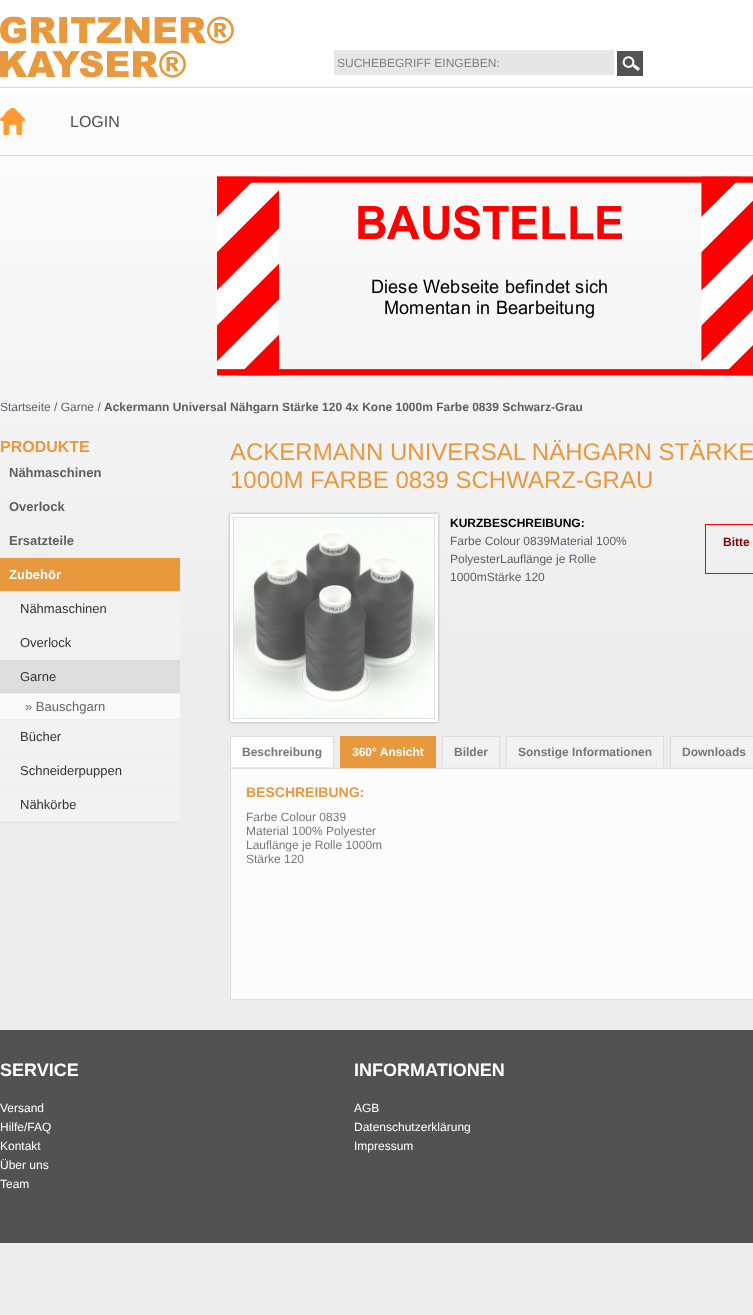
<svg xmlns="http://www.w3.org/2000/svg" width="753" height="1315">
	<defs>
		<linearGradient id="g1" gradientUnits="userSpaceOnUse" x1="376" y1="0" x2="377" y2="1315"><stop offset="0" stop-color="#FFFFFF" /><stop offset="0.5" stop-color="#EDEDED" /></linearGradient>
	</defs>
	<rect width="100%" height="100%" fill="#FFFFFF" />
	<rect x="0" y="91" width="753" height="1224" fill="url(#g1)" />
	<image x="0" y="16" width="234" height="62" href="assets/img1.png" />
	<rect x="334" y="50" width="280" height="25" fill="#E6E6E6" />
	<text x="337" y="67" font-family="Liberation Sans" font-size="12" fill="#7F7F7F">SUCHEBEGRIFF EINGEBEN:</text>
	<image x="617" y="51" width="26" height="25" href="assets/img2.png" />
	<rect x="0" y="87" width="753" height="1" fill="#D5D5D5" />
	<rect x="0" y="155" width="753" height="1" fill="#D5D5D5" />
	<image x="0" y="108" width="25" height="27" href="assets/img3.png" />
	<text x="70" y="127" font-family="Liberation Sans" font-size="16" fill="#50504F">LOGIN</text>
	<image x="216" y="176" width="537" height="200" href="assets/img4.png" />
	<text x="0" y="411" font-family="Liberation Sans" font-size="12" fill="#5E5D63">Startseite / Garne /</text>
	<text x="104" y="411" font-family="Liberation Sans" font-size="12" font-weight="700" fill="#5E5D63">Ackermann Universal Nähgarn Stärke 120 4x Kone 1000m Farbe 0839 Schwarz-Grau</text>
	<text x="0" y="452" font-family="Liberation Sans" font-size="16" font-weight="700" fill="#E8983D">PRODUKTE</text>
	<rect x="0" y="822" width="180" height="1" fill="#E3E3E3" />
	<g font-family="Liberation Sans" font-size="13" font-weight="700" fill="#5E5D63">
		<text x="9" y="477">Nähmaschinen</text>
		<text x="9" y="511">Overlock</text>
		<text x="9" y="545">Ersatzteile</text>
	</g>
	<rect x="0" y="558" width="180" height="33" fill="#E8983D" />
	<text x="9" y="579" font-family="Liberation Sans" font-size="13" font-weight="700" fill="#FFFFFF">Zubehör</text>
	<rect x="0" y="592" width="180" height="33" fill="#F2F2F2" />
	<text x="20" y="613" font-family="Liberation Sans" font-size="13" fill="#333333">Nähmaschinen</text>
	<rect x="0" y="626" width="180" height="33" fill="#F2F2F2" />
	<text x="20" y="647" font-family="Liberation Sans" font-size="13" fill="#333333">Overlock</text>
	<rect x="0" y="660" width="180" height="33" fill="#DDDDDD" />
	<text x="20" y="681" font-family="Liberation Sans" font-size="13" fill="#333333">Garne</text>
	<rect x="0" y="694" width="180" height="25" fill="#F9F9F9" />
	<text x="25" y="711" font-family="Liberation Sans" font-size="13" fill="#666666">» Bauschgarn</text>
	<rect x="0" y="720" width="180" height="33" fill="#F2F2F2" />
	<text x="20" y="741" font-family="Liberation Sans" font-size="13" fill="#333333">Bücher</text>
	<rect x="0" y="754" width="180" height="33" fill="#F2F2F2" />
	<text x="20" y="775" font-family="Liberation Sans" font-size="13" fill="#333333">Schneiderpuppen</text>
	<rect x="0" y="788" width="180" height="33" fill="#F2F2F2" />
	<text x="20" y="809" font-family="Liberation Sans" font-size="13" fill="#333333">Nähkörbe</text>
	<g font-family="Liberation Sans" font-size="24" fill="#E8983D">
		<text x="230" y="460">ACKERMANN UNIVERSAL NÄHGARN STÄRKE</text>
		<text x="230" y="488">1000M FARBE 0839 SCHWARZ-GRAU</text>
	</g>
	<rect x="230" y="514" width="208" height="208" fill="#999999" filter="blur(1.5px)" />
	<rect x="231.5" y="515.5" width="205" height="205" fill="#E1E1E1" stroke="#FFFFFF" stroke-width="3" />
	<image x="234" y="518" width="200" height="200" href="assets/img5.png" />
	<text x="450" y="527" font-family="Liberation Sans" font-size="12" font-weight="700" fill="#000000">KURZBESCHREIBUNG:</text>
	<g font-family="Liberation Sans" font-size="12" fill="#5E5D63">
		<text x="450" y="545">Farbe Colour 0839Material 100%</text>
		<text x="450" y="563">PolyesterLauflänge je Rolle</text>
		<text x="450" y="581">1000mStärke 120</text>
	</g>
	<rect x="705.5" y="524.5" width="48" height="49" fill="none" stroke="#FE0000" />
	<text x="723" y="546" font-family="Liberation Sans" font-size="12" font-weight="700" fill="#800000">Bitte</text>
	<rect x="231" y="737" width="102" height="30" fill="#FFFFFF" />
	<rect x="230" y="736" width="104" height="1" fill="#DDDDDD" />
	<rect x="333" y="736" width="1" height="31" fill="#DDDDDD" />
	<rect x="230" y="736" width="1" height="31" fill="#DDDDDD" />
	<text x="242" y="756" font-family="Liberation Sans" font-size="12" font-weight="700" fill="#777777">Beschreibung</text>
	<rect x="340" y="736" width="96" height="32" fill="#E8983D" />
	<text x="352" y="756" font-family="Liberation Sans" font-size="12" font-weight="700" fill="#FFFFFF">360° Ansicht</text>
	<rect x="443" y="737" width="56" height="30" fill="#F2F2F2" />
	<rect x="442" y="736" width="58" height="1" fill="#DDDDDD" />
	<rect x="499" y="736" width="1" height="31" fill="#DDDDDD" />
	<rect x="442" y="736" width="1" height="31" fill="#DDDDDD" />
	<text x="454" y="756" font-family="Liberation Sans" font-size="12" font-weight="700" fill="#777777">Bilder</text>
	<rect x="507" y="737" width="156" height="30" fill="#F2F2F2" />
	<rect x="506" y="736" width="158" height="1" fill="#DDDDDD" />
	<rect x="663" y="736" width="1" height="31" fill="#DDDDDD" />
	<rect x="506" y="736" width="1" height="31" fill="#DDDDDD" />
	<text x="518" y="756" font-family="Liberation Sans" font-size="12" font-weight="700" fill="#777777">Sonstige Informationen</text>
	<rect x="671" y="737" width="82" height="30" fill="#F2F2F2" />
	<rect x="670" y="736" width="83" height="1" fill="#DDDDDD" />
	<rect x="670" y="736" width="1" height="31" fill="#DDDDDD" />
	<text x="682" y="756" font-family="Liberation Sans" font-size="12" font-weight="700" fill="#777777">Downloads</text>
	<rect x="230.5" y="768.5" width="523" height="231" fill="#FCFCFC" stroke="#DDDDDD" />
	<text x="246" y="797" font-family="Liberation Sans" font-size="14" font-weight="700" fill="#E8983D">BESCHREIBUNG:</text>
	<g font-family="Liberation Sans" font-size="12" fill="#777777">
		<text x="246" y="821">Farbe Colour 0839</text>
		<text x="246" y="835">Material 100% Polyester</text>
		<text x="246" y="849">Lauflänge je Rolle 1000m</text>
		<text x="246" y="863">Stärke 120</text>
	</g>
	<rect x="0" y="1030" width="753" height="213" fill="#525252" />
	<text x="0" y="1076" font-family="Liberation Sans" font-size="18" font-weight="700" fill="#FFFFFF">SERVICE</text>
	<g font-family="Liberation Sans" font-size="12" fill="#FFFFFF">
		<text x="0" y="1112">Versand</text>
		<text x="0" y="1131">Hilfe/FAQ</text>
		<text x="0" y="1150">Kontakt</text>
		<text x="0" y="1169">Über uns</text>
		<text x="0" y="1188">Team</text>
	</g>
	<text x="354" y="1076" font-family="Liberation Sans" font-size="18" font-weight="700" fill="#FFFFFF">INFORMATIONEN</text>
	<g font-family="Liberation Sans" font-size="12" fill="#FFFFFF">
		<text x="354" y="1112">AGB</text>
		<text x="354" y="1131">Datenschutzerklärung</text>
		<text x="354" y="1150">Impressum</text>
	</g>
</svg>
